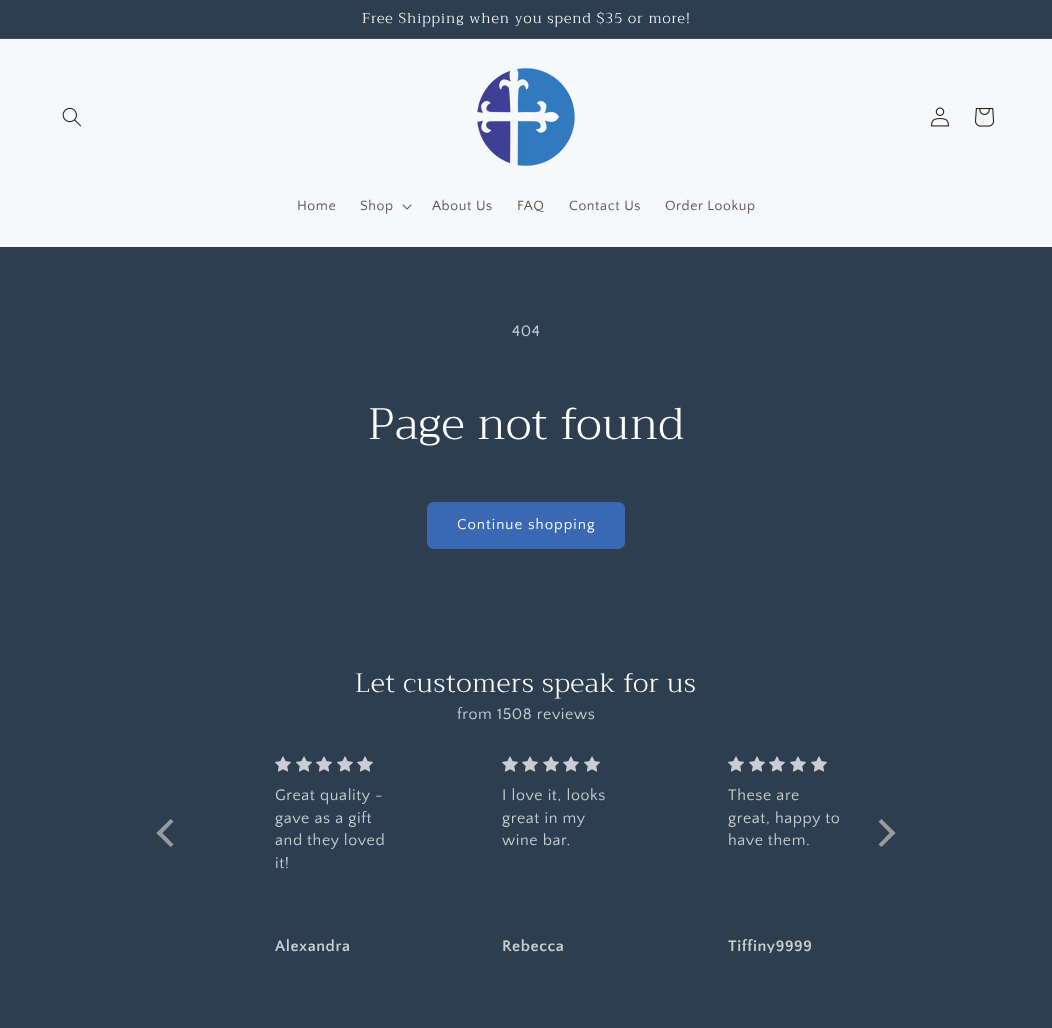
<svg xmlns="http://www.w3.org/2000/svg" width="1052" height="1028">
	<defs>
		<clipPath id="clip1"><rect x="728" y="938" width="118" height="15" /></clipPath>
	</defs>
	<rect width="100%" height="100%" fill="#2C3E50" />
	<rect x="0" y="38" width="1052" height="1" fill="#3D4D5E" />
	<text x="362" y="23" font-family="Trirong" font-size="14.3" font-weight="300" letter-spacing="1" fill="#FFFFFF">Free Shipping when you spend $35 or more!</text>
	<rect x="0" y="39" width="1052" height="208" fill="#F7F8FA" />
	<image x="62" y="107" width="19" height="20" href="assets/img1.png" />
	<image x="477" y="68" width="98" height="98" href="assets/img2.png" />
	<image x="931" y="107" width="18" height="20" href="assets/img3.png" />
	<image x="975" y="108" width="20" height="19" href="assets/img4.png" />
	<g font-family="Quattrocento Sans" font-size="14" letter-spacing="0.6" fill="#555556">
		<text x="297" y="210">Home</text>
		<text x="360" y="210">Shop</text>
	</g>
	<image x="402" y="204" width="10" height="6" href="assets/img5.png" />
	<g font-family="Quattrocento Sans" font-size="14" letter-spacing="0.6" fill="#555556">
		<text x="432" y="210">About Us</text>
		<text x="517" y="210">FAQ</text>
		<text x="569" y="210">Contact Us</text>
		<text x="665" y="210">Order Lookup</text>
	</g>
	<text x="512" y="336" font-family="Quattrocento Sans" font-size="16" letter-spacing="0.6" fill="#CACFD3">404</text>
	<text x="368" y="439" font-family="Trirong" font-size="44" font-weight="300" letter-spacing="0.65" fill="#FFFFFF">Page not found</text>
	<rect x="427" y="502" width="198" height="47" rx="7" fill="#3B68B2" />
	<rect x="427.5" y="502.5" width="197" height="46" rx="6.5" fill="none" stroke="#3B68B2" />
	<text x="457" y="529" font-family="Quattrocento Sans" font-size="15" letter-spacing="1" fill="#FFFFFF">Continue shopping</text>
	<text x="355" y="692" font-family="Trirong" font-size="26.4" font-weight="300" letter-spacing="0.65" fill="#FFFFFF">Let customers speak for us</text>
	<text x="457" y="719" font-family="Quattrocento Sans" font-size="16" letter-spacing="0.6" fill="#CACFD3">from 1508 reviews</text>
	<image x="275" y="756" width="16" height="16" href="assets/img6.png" />
	<image x="296" y="756" width="16" height="16" href="assets/img6.png" />
	<image x="316" y="756" width="16" height="16" href="assets/img6.png" />
	<image x="337" y="756" width="16" height="16" href="assets/img6.png" />
	<image x="357" y="756" width="16" height="16" href="assets/img6.png" />
	<g font-family="Quattrocento Sans" font-size="16" letter-spacing="0.6" fill="#CACFD3">
		<text x="275" y="800">Great quality -</text>
		<text x="275" y="823">gave as a gift</text>
		<text x="275" y="845">and they loved</text>
		<text x="275" y="868">it!</text>
	</g>
	<text x="275" y="951" font-family="Quattrocento Sans" font-size="16" font-weight="700" letter-spacing="0.6" fill="#CACFD3">Alexandra</text>
	<image x="502" y="756" width="16" height="16" href="assets/img6.png" />
	<image x="522" y="756" width="16" height="16" href="assets/img6.png" />
	<image x="543" y="756" width="16" height="16" href="assets/img6.png" />
	<image x="563" y="756" width="16" height="16" href="assets/img6.png" />
	<image x="584" y="756" width="16" height="16" href="assets/img6.png" />
	<g font-family="Quattrocento Sans" font-size="16" letter-spacing="0.6" fill="#CACFD3">
		<text x="502" y="800">I love it, looks</text>
		<text x="502" y="823">great in my</text>
		<text x="502" y="845">wine bar.</text>
	</g>
	<text x="502" y="951" font-family="Quattrocento Sans" font-size="16" font-weight="700" letter-spacing="0.6" fill="#CACFD3">Rebecca</text>
	<image x="728" y="756" width="16" height="16" href="assets/img6.png" />
	<image x="749" y="756" width="16" height="16" href="assets/img6.png" />
	<image x="769" y="756" width="16" height="16" href="assets/img6.png" />
	<image x="790" y="756" width="16" height="16" href="assets/img6.png" />
	<image x="811" y="756" width="16" height="16" href="assets/img6.png" />
	<g font-family="Quattrocento Sans" font-size="16" letter-spacing="0.6" fill="#CACFD3">
		<text x="728" y="800">These are</text>
		<text x="728" y="823">great, happy to</text>
		<text x="728" y="845">have them.</text>
	</g>
	<g clip-path="url(#clip1)">
		<text x="728" y="951" font-family="Quattrocento Sans" font-size="16" font-weight="700" letter-spacing="0.6" fill="#CACFD3">Tiffiny9999</text>
	</g>
	<path d="M156.5 833L170.5 819L173.5 821.5L159.5 836Z" fill="#9B9B9B" />
	<path d="M156.5 833L159.5 830L173.5 844.5L170.5 847Z" fill="#9B9B9B" />
	<path d="M878.5 821.5L881.5 819L895.5 833L892.5 836Z" fill="#9B9B9B" />
	<path d="M878.5 844.5L892.5 830L895.5 833L881.5 847Z" fill="#9B9B9B" />
</svg>
